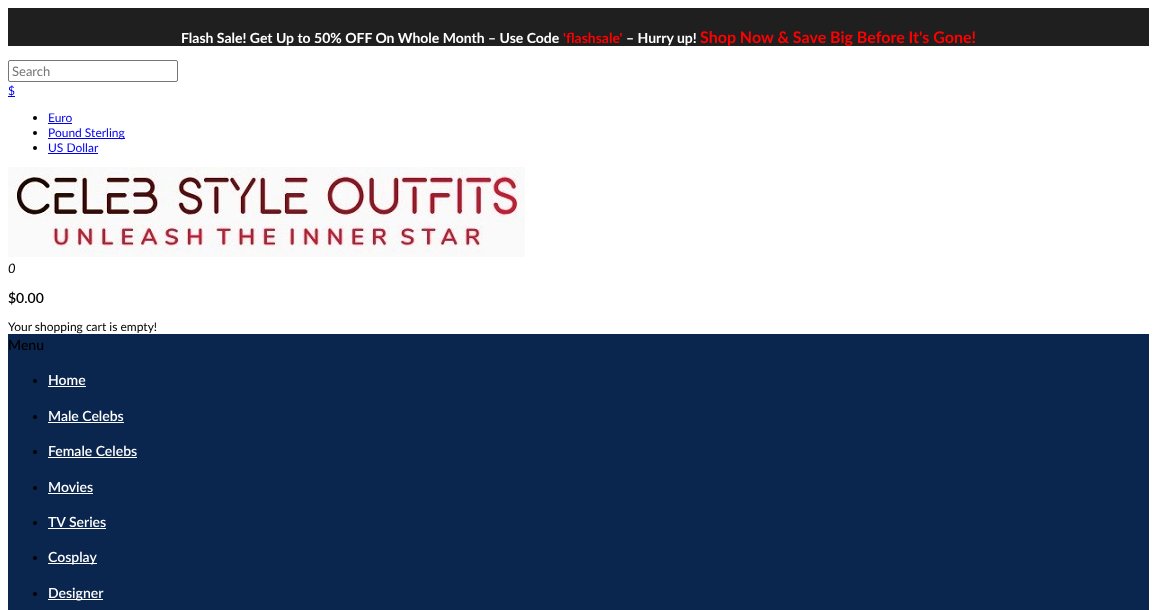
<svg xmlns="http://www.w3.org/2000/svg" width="1157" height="610">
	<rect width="100%" height="100%" fill="#FFFFFF" />
	<rect x="8" y="8" width="1141" height="38" fill="#1F1F1F" />
	<text x="181" y="43" font-family="Lato" font-size="14" font-weight="700" fill="#FFFFFF">Flash Sale! Get Up to 50% OFF On Whole Month – Use Code</text>
	<text x="563" y="43" font-family="Lato" font-size="14" font-weight="700" fill="#FF0000">'flashsale'</text>
	<text x="626" y="43" font-family="Lato" font-size="14" font-weight="700" fill="#FFFFFF">– Hurry up!</text>
	<text x="700" y="43" font-family="Lato" font-size="16" font-weight="700" fill="#FF0000">Shop Now &amp; Save Big Before It's Gone!</text>
	<rect x="8.5" y="60.5" width="169" height="21" rx="1.5" fill="none" stroke="#767676" />
	<text x="12" y="76" font-family="Lato" font-size="13" fill="#757575">Search</text>
	<rect x="8" y="96" width="7" height="1" fill="#0000EE" />
	<text x="8" y="95" font-family="Lato" font-size="12" fill="#0000EE">$</text>
	<circle cx="35" cy="118" r="2" fill="#000000" />
	<text x="48" y="122" font-family="Lato" font-size="12" fill="#0000EE">Euro</text>
	<rect x="48" y="123" width="24" height="1" fill="#0000EE" />
	<circle cx="35" cy="133" r="2" fill="#000000" />
	<rect x="48" y="138" width="77" height="1" fill="#0000EE" />
	<text x="48" y="137" font-family="Lato" font-size="12" fill="#0000EE">Pound Sterling</text>
	<circle cx="35" cy="148" r="2" fill="#000000" />
	<text x="48" y="152" font-family="Lato" font-size="12" fill="#0000EE">US Dollar</text>
	<rect x="48" y="153" width="50" height="1" fill="#0000EE" />
	<image x="8" y="167" width="517" height="90" href="assets/img1.png" />
	<text x="8" y="273" font-family="Lato" font-size="13" font-style="italic" fill="#000000">0</text>
	<text x="8" y="303" font-family="Lato" font-size="14" font-weight="600" fill="#000000">$0.00</text>
	<text x="8" y="331" font-family="Lato" font-size="12" fill="#000000">Your shopping cart is empty!</text>
	<rect x="8" y="334" width="1141" height="276" fill="#0B264E" />
	<text x="8" y="350" font-family="Lato" font-size="14" font-weight="600" fill="#000000">Menu</text>
	<circle cx="35" cy="381" r="2" fill="#000000" />
	<text x="48" y="385" font-family="Lato" font-size="14" font-weight="600" fill="#FFFFFF">Home</text>
	<rect x="48" y="386" width="38" height="1" fill="#FFFFFF" />
	<circle cx="35" cy="417" r="2" fill="#000000" />
	<text x="48" y="421" font-family="Lato" font-size="14" font-weight="600" fill="#FFFFFF">Male Celebs</text>
	<rect x="48" y="422" width="76" height="1" fill="#FFFFFF" />
	<circle cx="35" cy="452" r="2" fill="#000000" />
	<text x="48" y="456" font-family="Lato" font-size="14" font-weight="600" fill="#FFFFFF">Female Celebs</text>
	<rect x="48" y="457" width="89" height="1" fill="#FFFFFF" />
	<circle cx="35" cy="488" r="2" fill="#000000" />
	<text x="48" y="492" font-family="Lato" font-size="14" font-weight="600" fill="#FFFFFF">Movies</text>
	<rect x="48" y="493" width="45" height="1" fill="#FFFFFF" />
	<circle cx="35" cy="523" r="2" fill="#000000" />
	<text x="48" y="527" font-family="Lato" font-size="14" font-weight="600" fill="#FFFFFF">TV Series</text>
	<rect x="48" y="528" width="58" height="1" fill="#FFFFFF" />
	<circle cx="35" cy="558" r="2" fill="#000000" />
	<rect x="48" y="563" width="49" height="1" fill="#FFFFFF" />
	<text x="48" y="562" font-family="Lato" font-size="14" font-weight="600" fill="#FFFFFF">Cosplay</text>
	<circle cx="35" cy="594" r="2" fill="#000000" />
	<rect x="48" y="599" width="55" height="1" fill="#FFFFFF" />
	<text x="48" y="598" font-family="Lato" font-size="14" font-weight="600" fill="#FFFFFF">Designer</text>
</svg>
